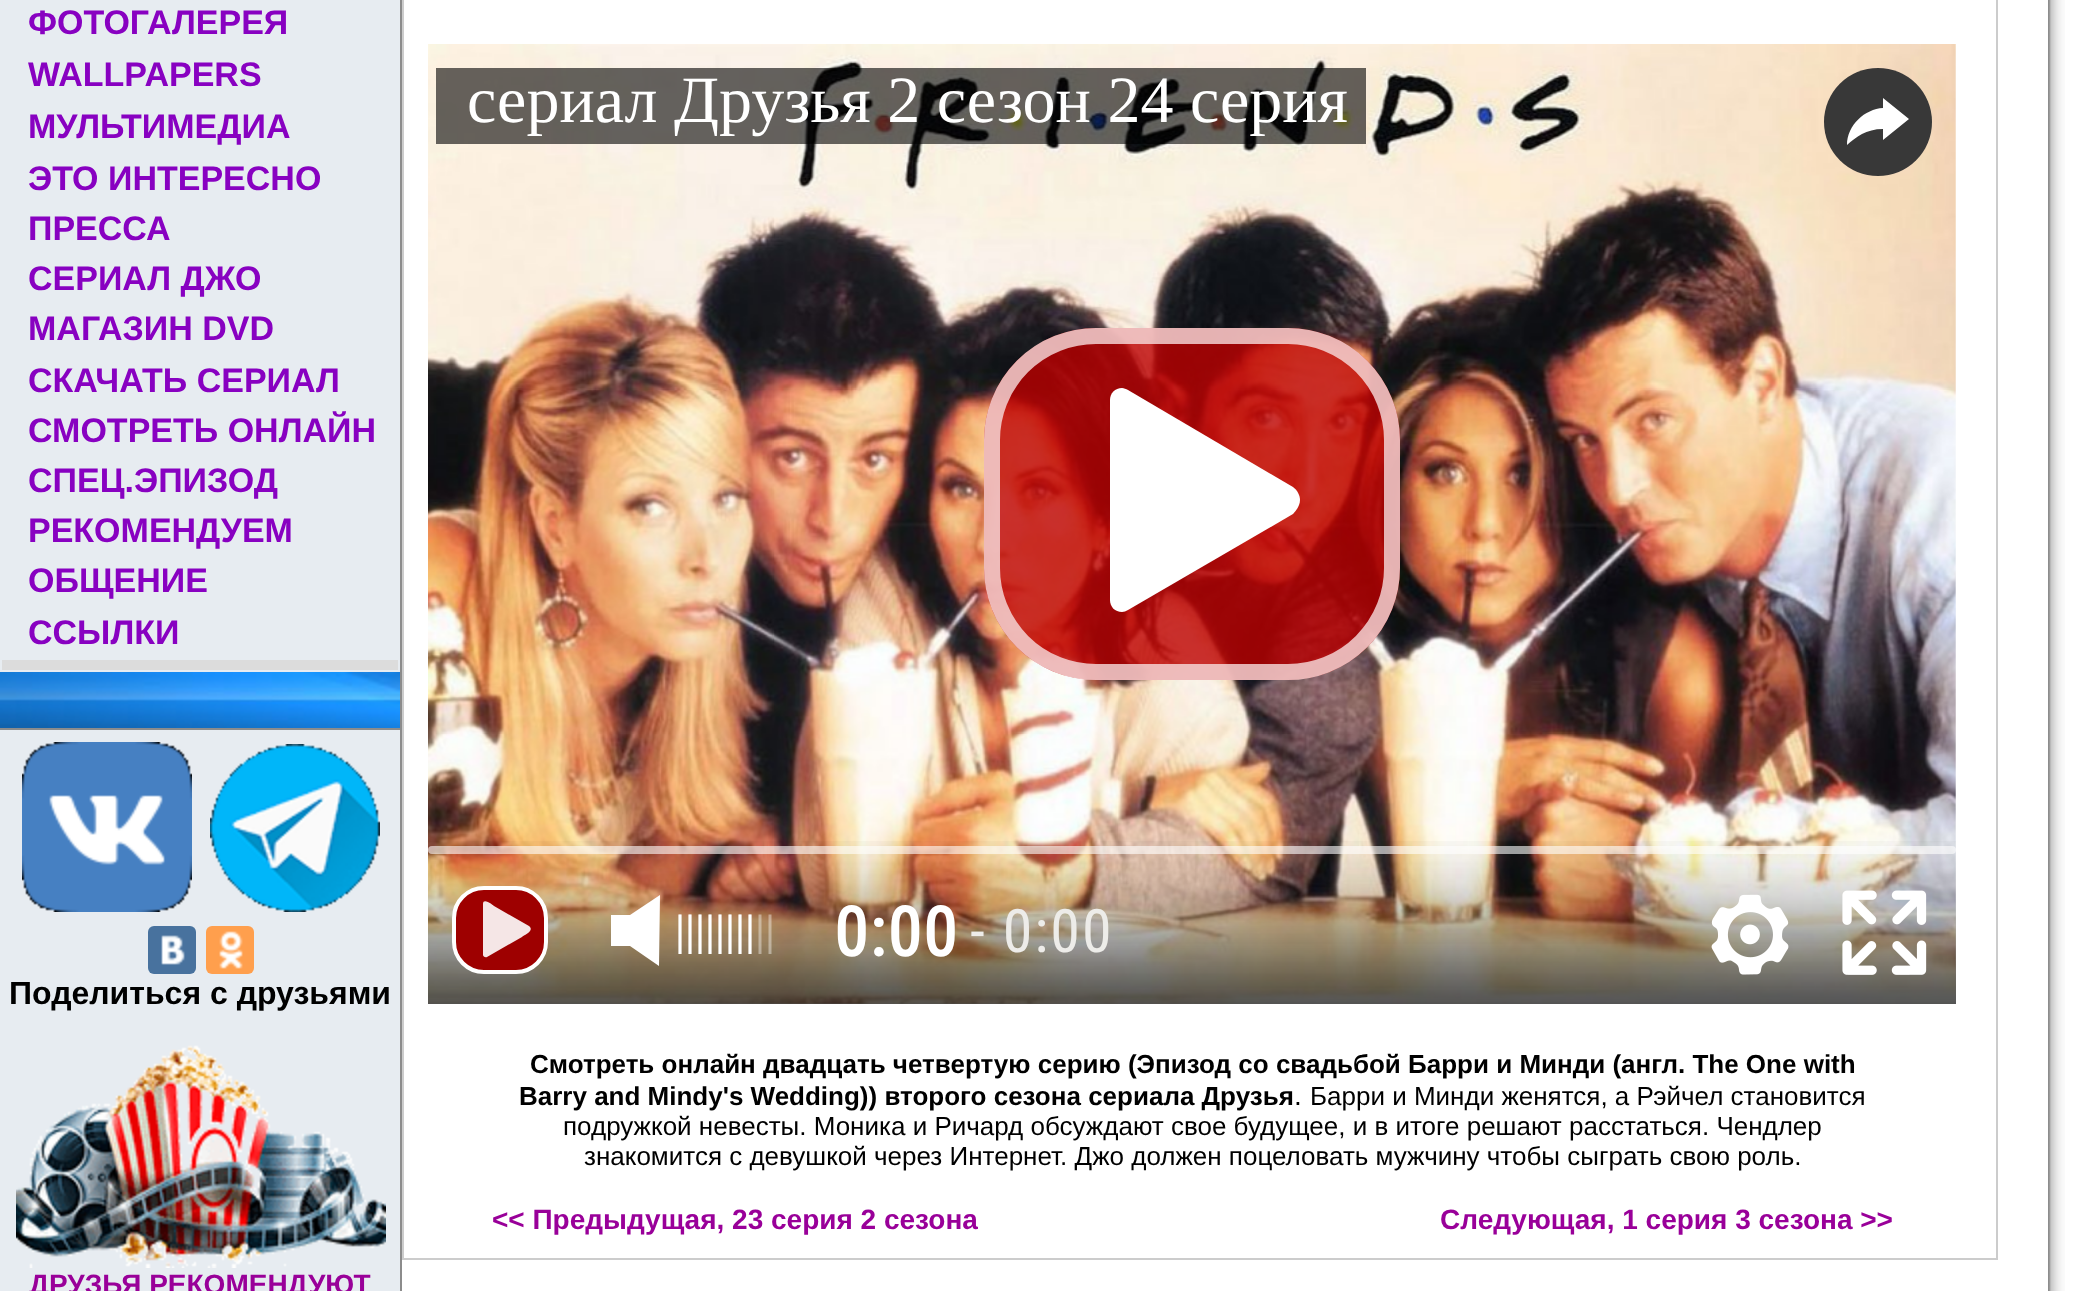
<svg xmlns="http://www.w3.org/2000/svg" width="2097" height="1291">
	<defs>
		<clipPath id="clip1"><rect x="674" y="886" width="84" height="68" /></clipPath>
	</defs>
	<rect width="100%" height="100%" fill="#FFFFFF" />
	<rect x="0" y="0" width="400" height="1291" fill="#E7ECF1" />
	<g font-family="Liberation Sans" font-size="34" font-weight="700" fill="#8801C1">
		<text x="28" y="34">ФОТОГАЛЕРЕЯ</text>
		<text x="28" y="86">WALLPAPERS</text>
		<text x="28" y="138">МУЛЬТИМЕДИА</text>
		<text x="28" y="190">ЭТО ИНТЕРЕСНО</text>
		<text x="28" y="240">ПРЕССА</text>
		<text x="28" y="290">СЕРИАЛ ДЖО</text>
		<text x="28" y="340">МАГАЗИН DVD</text>
		<text x="28" y="392">СКАЧАТЬ СЕРИАЛ</text>
		<text x="28" y="442">СМОТРЕТЬ ОНЛАЙН</text>
		<text x="28" y="492">СПЕЦ.ЭПИЗОД</text>
		<text x="28" y="542">РЕКОМЕНДУЕМ</text>
		<text x="28" y="592">ОБЩЕНИЕ</text>
		<text x="28" y="644">ССЫЛКИ</text>
	</g>
	<rect x="2" y="660" width="396" height="10" fill="#DCDCDC" />
	<image x="0" y="672" width="400" height="56" href="assets/img1.png" />
	<rect x="0" y="728" width="400" height="2" fill="#8C8C8C" />
	<image x="22" y="742" width="170" height="170" href="assets/img2.png" />
	<image x="210" y="744" width="170" height="168" href="assets/img3.png" />
	<rect x="148" y="926" width="48" height="48" rx="6" fill="#48729E" />
	<image x="161" y="935" width="24" height="30" href="assets/img4.png" />
	<rect x="206" y="926" width="48" height="48" rx="6" fill="#FF9F4D" />
	<image x="219" y="931" width="24" height="38" href="assets/img5.png" />
	<text x="9" y="1004" font-family="Liberation Sans" font-size="32" font-weight="700" fill="#000000">Поделиться с друзьями</text>
	<image x="16" y="1045" width="370" height="223" href="assets/img6.png" />
	<text x="29" y="1294" font-family="Liberation Sans" font-size="28" font-weight="700" fill="#990099">ДРУЗЬЯ РЕКОМЕНДУЮТ</text>
	<rect x="400" y="0" width="2" height="1291" fill="#8C8C8C" />
	<rect x="402" y="0" width="1596" height="1260" fill="#CCCCCC" />
	<rect x="404" y="0" width="1592" height="1258" fill="#FFFFFF" />
	<image x="428" y="44" width="1528" height="960" href="assets/img7.png" />
	<rect x="436" y="68" width="930" height="76" fill="#000000" fill-opacity="0.6" />
	<text x="467" y="122" font-family="Liberation Serif" font-size="66" fill="#FFFFFF">сериал Друзья 2 сезон 24 серия</text>
	<circle cx="1878" cy="122" r="54" fill="#383838" />
	<path d="M1883 140V129C1866 129 1856 137 1847 145C1847 125 1865 109 1883 108V98L1909 119Z" fill="#FFFFFF" />
	<rect x="984" y="328" width="416" height="352" rx="112" fill="#BD0000" fill-opacity="0.8" />
	<rect x="992" y="336" width="400" height="336" rx="104" fill="none" stroke="#F7DFDF" stroke-opacity="0.8" stroke-width="16" />
	<path d="M1293 487L1128 390C1126 389 1124 388 1122 388C1115 388 1110 393 1110 400V600C1110 607 1115 612 1122 612C1124 612 1126 611 1128 610L1293 514C1297 510 1300 505 1300 500C1300 495 1297 490 1293 487Z" fill="#FFFFFF" />
	<image x="428" y="841" width="1528" height="163" href="assets/img8.png" />
	<rect x="428" y="846" width="1528" height="8" rx="4" fill="#FFFFFF" fill-opacity="0.6" />
	<rect x="454" y="888" width="92" height="84" rx="30" fill="#9E0000" stroke="#FFFFFF" stroke-width="4" />
	<path d="M529 926L494 906C494 906 483 897 483 904V955C483 956 485 958 487 957L522 937C524 935 535 931 529 926Z" fill="#F5E6E6" />
	<path d="M611 946V915H630L660 895L659 966L630 946Z" fill="#FFFFFF" />
	<image x="678" y="914" width="94" height="40" href="assets/img9.png" />
	<g clip-path="url(#clip1)">
		<path d="M680 916V956M690 916V956M700 916V956M710 916V956M720 916V956M730 916V956" fill="none" stroke="#FFFFFF" stroke-width="3" stroke-linecap="square" />
		<path d="M740 916V956M750 916V956" fill="none" stroke="#FFFFFF" stroke-width="3" stroke-linecap="square" />
	</g>
	<text x="834" y="956" font-family="Roboto Condensed" font-size="68" font-weight="700" letter-spacing="2" fill="#FFFFFF">0:00</text>
	<text x="970" y="952" font-family="Roboto Condensed" font-size="60" letter-spacing="2" fill="#EDECE9">- 0:00</text>
	<image x="1711" y="894" width="78" height="81" href="assets/img10.png" />
	<image x="1842" y="890" width="85" height="85" href="assets/img11.png" />
	<g font-family="Liberation Sans" font-size="26" font-weight="700" fill="#000000">
		<text x="530" y="1073">Смотреть онлайн двадцать четвертую серию (Эпизод со свадьбой Барри и Минди (англ. The One with</text>
		<text x="519" y="1105">Barry and Mindy's Wedding)) второго сезона сериала Друзья</text>
	</g>
	<text x="1294" y="1105" font-family="Liberation Sans" font-size="28" fill="#000000">.</text>
	<g font-family="Liberation Sans" font-size="26" fill="#000000">
		<text x="1310" y="1105">Барри и Минди женятся, а Рэйчел становится</text>
		<text x="563" y="1135">подружкой невесты. Моника и Ричард обсуждают свое будущее, и в итоге решают расстаться. Чендлер</text>
		<text x="584" y="1165">знакомится с девушкой через Интернет. Джо должен поцеловать мужчину чтобы сыграть свою роль.</text>
	</g>
	<g font-family="Liberation Sans" font-size="28" font-weight="700" fill="#990099">
		<text x="492" y="1229">&lt;&lt; Предыдущая, 23 серия 2 сезона</text>
		<text x="1440" y="1229">Следующая, 1 серия 3 сезона &gt;&gt;</text>
	</g>
	<image x="2048" y="0" width="17" height="1291" href="assets/img12.png" />
</svg>
